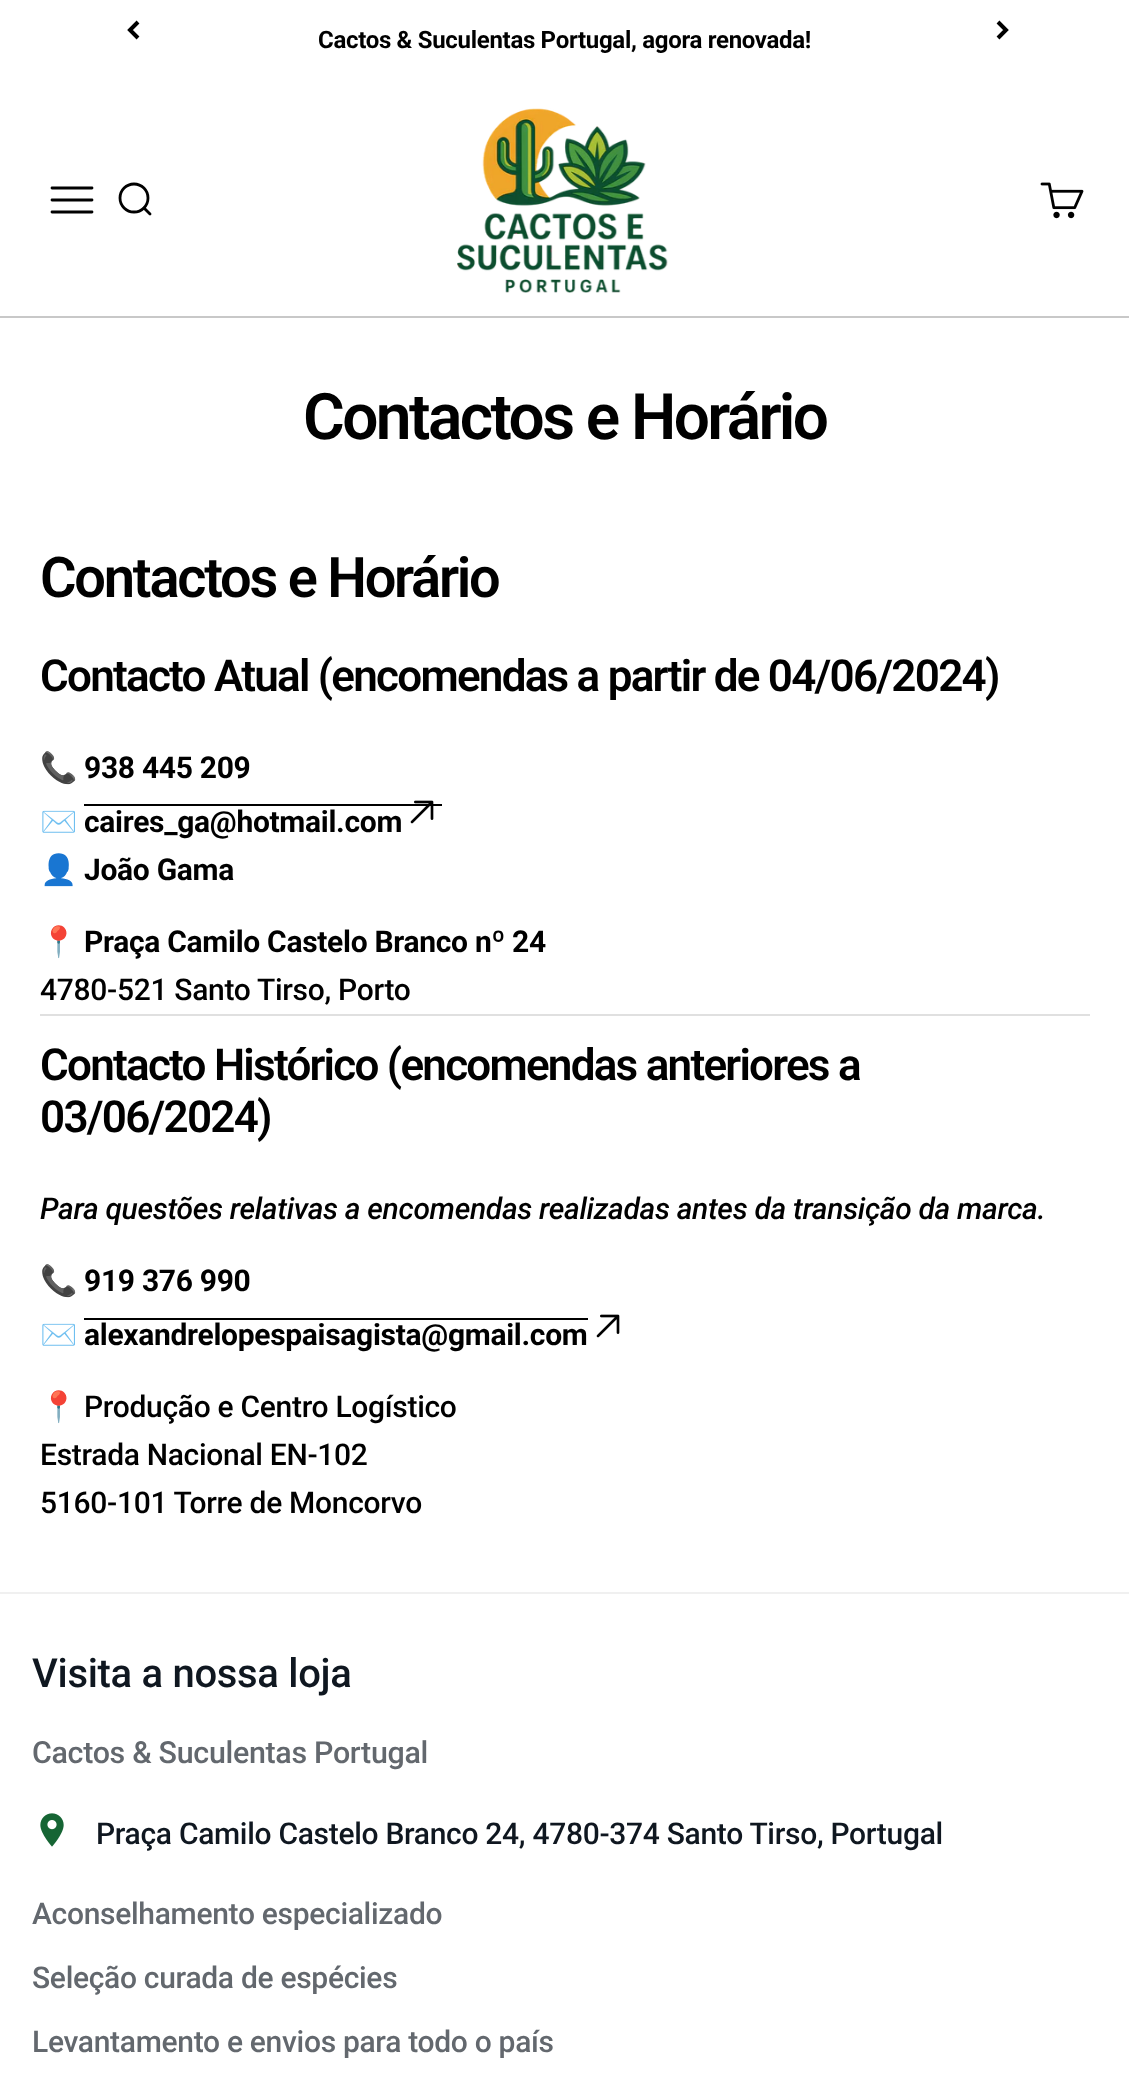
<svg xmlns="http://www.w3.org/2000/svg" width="1129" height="2084">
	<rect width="100%" height="100%" fill="#FFFFFF" />
	<path d="M138 22L130 30L138 38" fill="none" stroke="#000000" stroke-width="4" />
	<text x="318" y="48" font-family="Roboto" font-size="24" font-weight="700" letter-spacing="-0.3" fill="#000000">Cactos &amp; Suculentas Portugal, agora renovada!</text>
	<path d="M998 38L1006 30L998 22" fill="none" stroke="#000000" stroke-width="4" />
	<rect x="0" y="316" width="1129" height="2" fill="#C8C8C8" />
	<path d="M52 188H92M52 200H92M52 212H92" fill="none" stroke="#000000" stroke-width="2.8" stroke-linecap="round" />
	<circle cx="134" cy="198" r="14" fill="none" stroke="#000000" stroke-width="2.8" />
	<path d="M144 208L150 214" fill="none" stroke="#000000" stroke-width="2.8" stroke-linecap="round" stroke-linejoin="round" />
	<image x="457" y="108" width="211" height="185" href="assets/img1.png" />
	<image x="1040" y="182" width="44" height="37" href="assets/img2.png" />
	<text x="303" y="439" font-family="Roboto" font-size="64" font-weight="600" letter-spacing="-2.6" fill="#000000">Contactos e Horário</text>
	<text x="40" y="597" font-family="Roboto" font-size="56" font-weight="600" letter-spacing="-2.25" fill="#000000">Contactos e Horário</text>
	<text x="40" y="691" font-family="Roboto" font-size="44" font-weight="600" letter-spacing="-1.75" fill="#000000">Contacto Atual (encomendas a partir de 04/06/2024)</text>
	<text x="40" y="778" font-family="Noto Color Emoji" font-size="30" letter-spacing="-0.3" fill="#000000">📞</text>
	<text x="84" y="778" font-family="Roboto" font-size="30" font-weight="700" letter-spacing="-0.3" fill="#000000">938 445 209</text>
	<text x="40" y="832" font-family="Noto Color Emoji" font-size="30" letter-spacing="-0.3" fill="#000000">✉️</text>
	<text x="84" y="832" font-family="Roboto" font-size="30" font-weight="700" letter-spacing="-0.3" fill="#000000">caires_ga@hotmail.com</text>
	<rect x="84" y="804" width="358" height="2" fill="#000000" />
	<image x="410" y="800" width="24" height="24" href="assets/img3.png" />
	<text x="40" y="880" font-family="Noto Color Emoji" font-size="30" letter-spacing="-0.3" fill="#000000">👤</text>
	<text x="84" y="880" font-family="Roboto" font-size="30" font-weight="700" letter-spacing="-0.3" fill="#000000">João Gama</text>
	<text x="40" y="952" font-family="Noto Color Emoji" font-size="30" letter-spacing="-0.3" fill="#000000">📍</text>
	<text x="84" y="952" font-family="Roboto" font-size="30" font-weight="700" letter-spacing="-0.3" fill="#000000">Praça Camilo Castelo Branco nº 24</text>
	<text x="40" y="1000" font-family="Roboto" font-size="30" font-weight="500" letter-spacing="-0.3" fill="#000000">4780-521 Santo Tirso, Porto</text>
	<rect x="40" y="1014" width="1050" height="2" fill="#E0E0E0" />
	<g font-family="Roboto" font-size="44" font-weight="600" letter-spacing="-1.75" fill="#000000">
		<text x="40" y="1080">Contacto Histórico (encomendas anteriores a</text>
		<text x="40" y="1132">03/06/2024)</text>
	</g>
	<text x="40" y="1219" font-family="Roboto" font-size="30" font-weight="500" font-style="italic" letter-spacing="-0.3" fill="#000000">Para questões relativas a encomendas realizadas antes da transição da marca.</text>
	<text x="40" y="1291" font-family="Noto Color Emoji" font-size="30" letter-spacing="-0.3" fill="#000000">📞</text>
	<text x="84" y="1291" font-family="Roboto" font-size="30" font-weight="700" letter-spacing="-0.3" fill="#000000">919 376 990</text>
	<text x="40" y="1345" font-family="Noto Color Emoji" font-size="30" letter-spacing="-0.3" fill="#000000">✉️</text>
	<text x="84" y="1345" font-family="Roboto" font-size="30" font-weight="700" letter-spacing="-0.3" fill="#000000">alexandrelopespaisagista@gmail.com</text>
	<rect x="84" y="1318" width="504" height="2" fill="#000000" />
	<image x="596" y="1314" width="24" height="24" href="assets/img4.png" />
	<text x="40" y="1417" font-family="Noto Color Emoji" font-size="30" letter-spacing="-0.3" fill="#000000">📍</text>
	<g font-family="Roboto" font-size="30" font-weight="500" letter-spacing="-0.3" fill="#000000">
		<text x="84" y="1417">Produção e Centro Logístico</text>
		<text x="40" y="1465">Estrada Nacional EN-102</text>
		<text x="40" y="1513">5160-101 Torre de Moncorvo</text>
	</g>
	<rect x="0" y="1592" width="1129" height="2" fill="#F0F0F0" />
	<text x="32" y="1687" font-family="Roboto" font-size="40" font-weight="500" letter-spacing="-0.3" fill="#0F1720">Visita a nossa loja</text>
	<text x="32" y="1763" font-family="Roboto" font-size="30.4" font-weight="500" letter-spacing="-0.3" fill="#63686E">Cactos &amp; Suculentas Portugal</text>
	<image x="40" y="1813" width="24" height="34" href="assets/img5.png" />
	<text x="96" y="1844" font-family="Roboto" font-size="30" font-weight="500" letter-spacing="-0.3" fill="#0F1720">Praça Camilo Castelo Branco 24, 4780-374 Santo Tirso, Portugal</text>
	<g font-family="Roboto" font-size="30" font-weight="500" letter-spacing="-0.3" fill="#63686E">
		<text x="32" y="1924">Aconselhamento especializado</text>
		<text x="32" y="1988">Seleção curada de espécies</text>
		<text x="32" y="2052">Levantamento e envios para todo o país</text>
	</g>
</svg>
